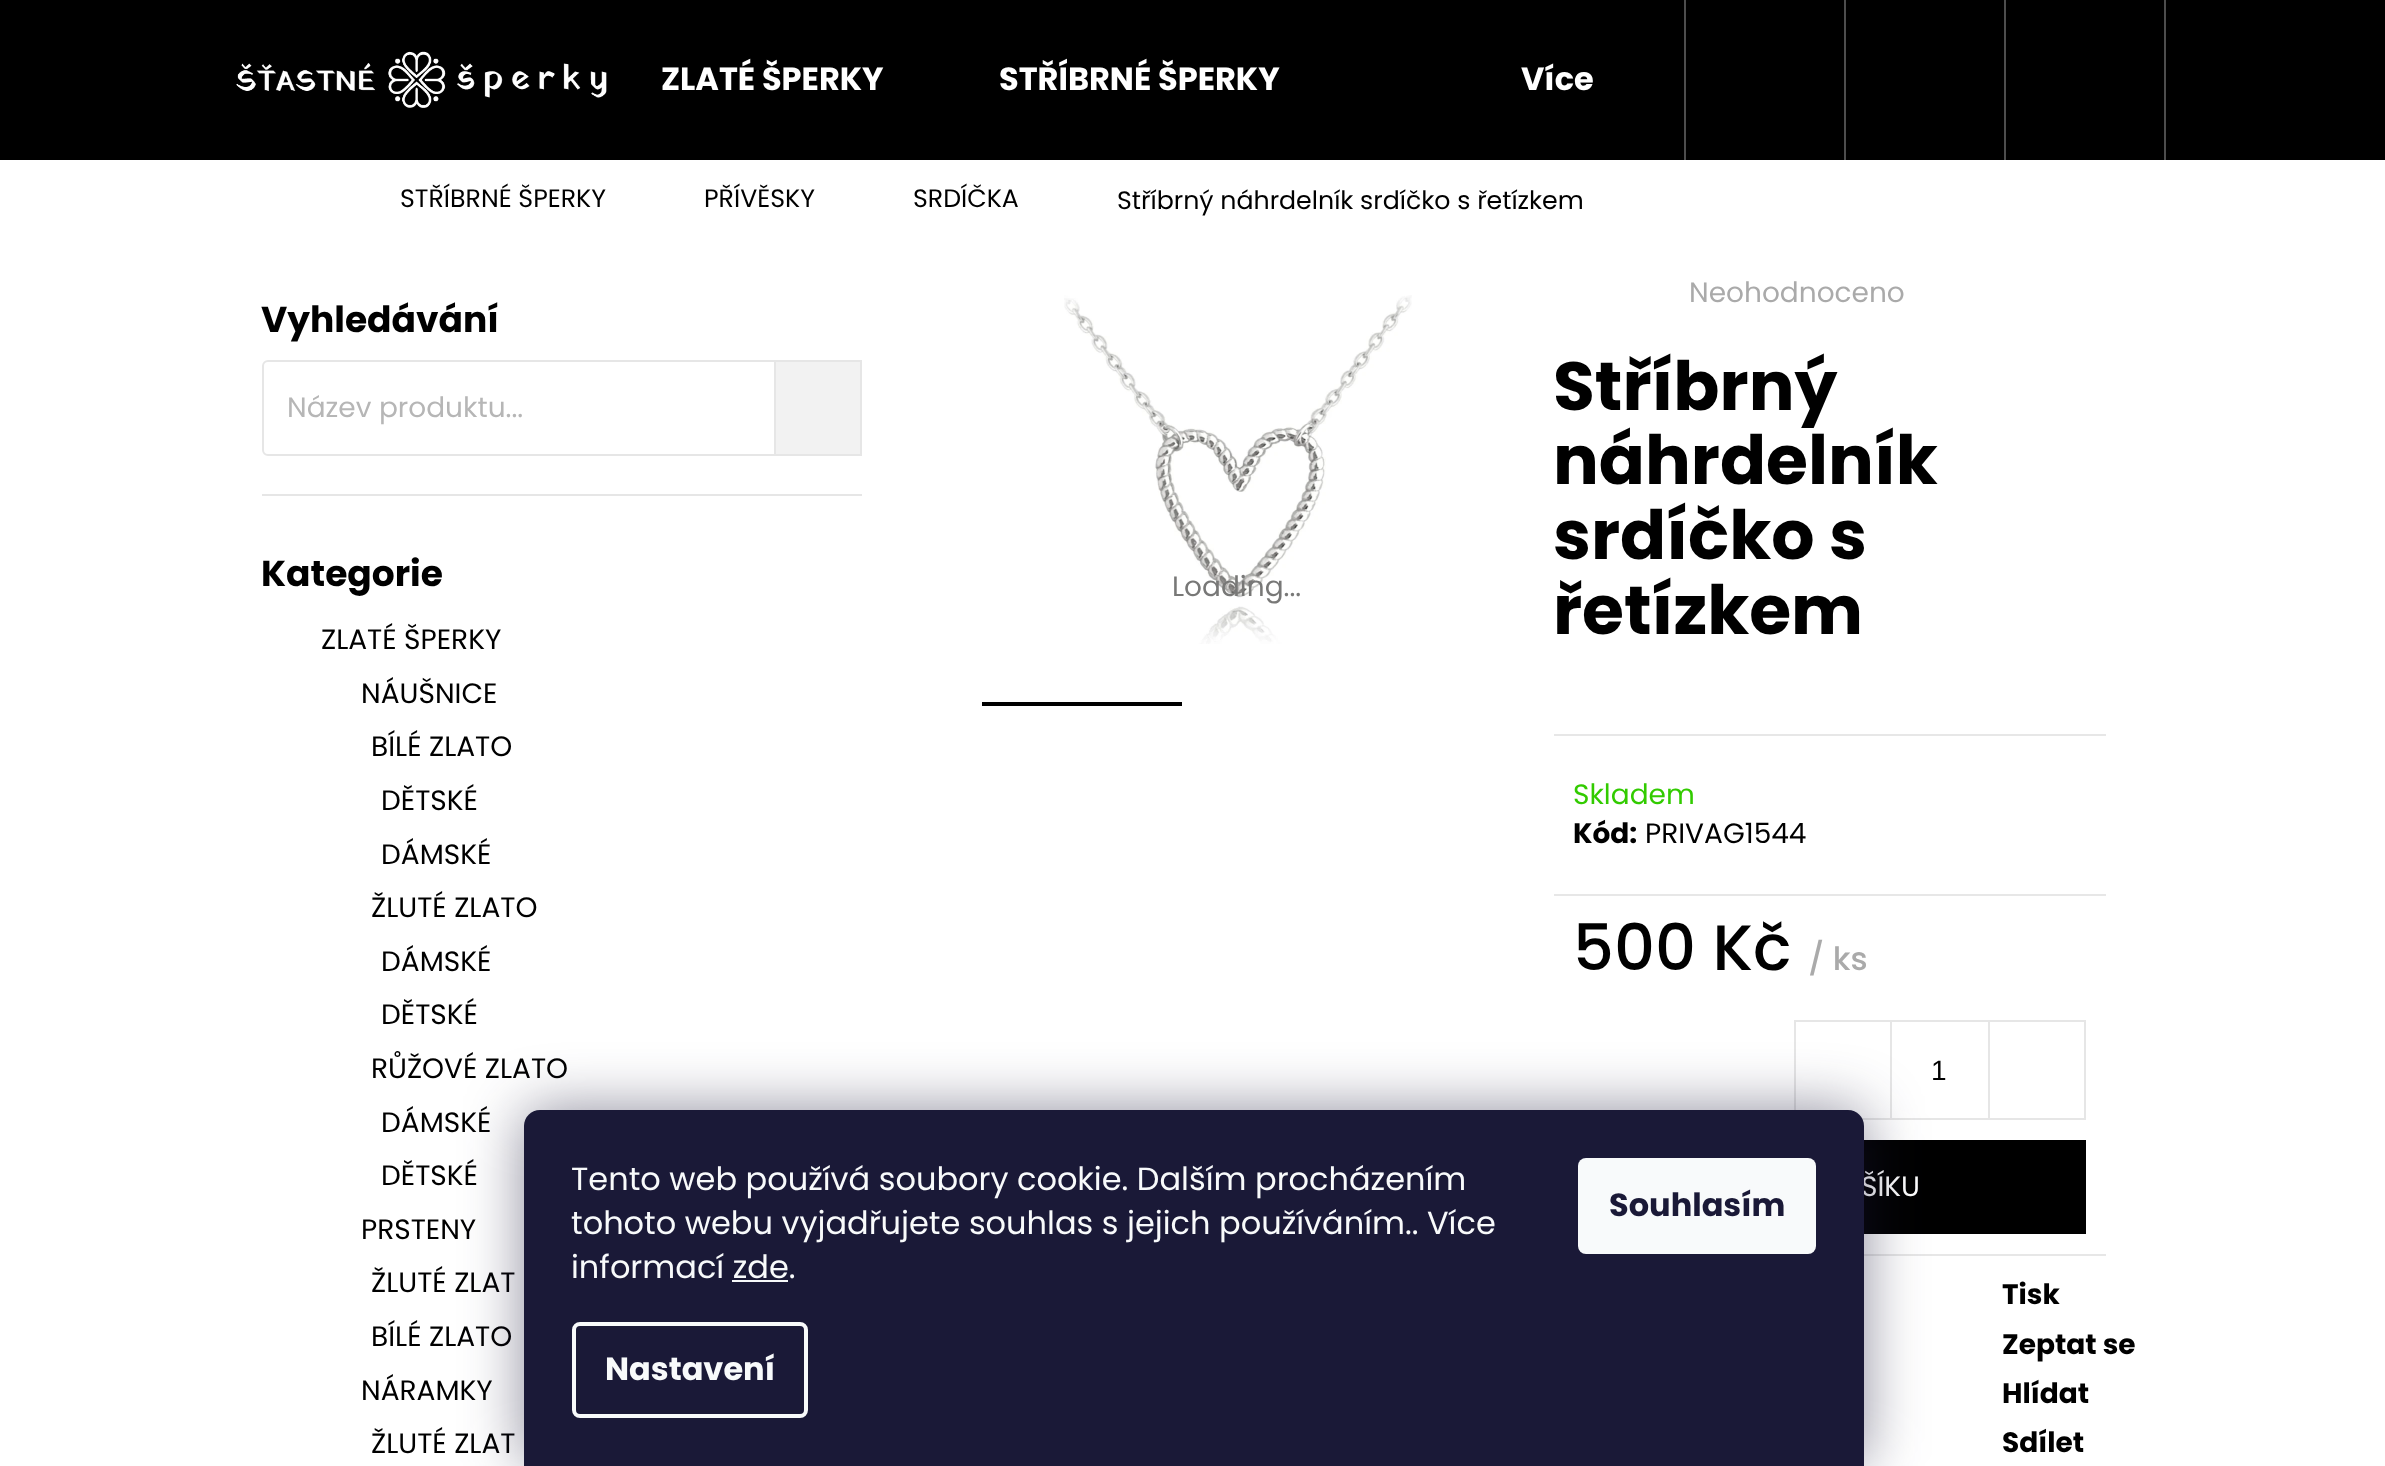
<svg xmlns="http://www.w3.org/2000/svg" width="2385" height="1466">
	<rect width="100%" height="100%" fill="#FFFFFF" />
	<rect x="0" y="0" width="2385" height="160" fill="#000000" />
	<image x="236" y="51" width="371" height="57" href="assets/img1.png" />
	<g font-family="Poppins" font-size="32" font-weight="700" fill="#FFFFFF">
		<text x="661" y="90">ZLATÉ ŠPERKY</text>
		<text x="999" y="90">STŘÍBRNÉ ŠPERKY</text>
		<text x="1521" y="90">Více</text>
	</g>
	<rect x="2164" y="0" width="2" height="160" fill="#4D4D4D" />
	<rect x="1684" y="0" width="2" height="160" fill="#4D4D4D" />
	<rect x="1844" y="0" width="2" height="160" fill="#4D4D4D" />
	<rect x="2004" y="0" width="2" height="160" fill="#4D4D4D" />
	<g font-family="Poppins" font-size="25.25" fill="#000000">
		<text x="400" y="207">STŘÍBRNÉ ŠPERKY</text>
		<text x="704" y="207">PŘÍVĚSKY</text>
		<text x="913" y="207">SRDÍČKA</text>
		<text x="1117" y="209">Stříbrný náhrdelník srdíčko s řetízkem</text>
	</g>
	<text x="261" y="332" font-family="Poppins" font-size="36" font-weight="700" fill="#000000">Vyhledávání</text>
	<rect x="263" y="361" width="598" height="94" rx="5" fill="none" stroke="#E6E6E6" stroke-width="2" />
	<text x="287" y="417" font-family="Poppins" font-size="28" fill="#B6B6B6">Název produktu...</text>
	<rect x="775" y="361" width="86" height="94" fill="#F2F2F2" stroke="#E6E6E6" stroke-width="2" />
	<rect x="262" y="494" width="600" height="2" fill="#E6E6E6" />
	<text x="261" y="586" font-family="Poppins" font-size="36" font-weight="700" fill="#000000">Kategorie</text>
	<g font-family="Poppins" font-size="28" fill="#000000">
		<text x="321" y="649">ZLATÉ ŠPERKY</text>
		<text x="361" y="703">NÁUŠNICE</text>
		<text x="371" y="756">BÍLÉ ZLATO</text>
		<text x="381" y="810">DĚTSKÉ</text>
		<text x="381" y="864">DÁMSKÉ</text>
		<text x="371" y="917">ŽLUTÉ ZLATO</text>
		<text x="381" y="971">DÁMSKÉ</text>
		<text x="381" y="1024">DĚTSKÉ</text>
		<text x="371" y="1078">RŮŽOVÉ ZLATO</text>
		<text x="381" y="1132">DÁMSKÉ</text>
		<text x="381" y="1185">DĚTSKÉ</text>
		<text x="361" y="1239">PRSTENY</text>
		<text x="371" y="1292">ŽLUTÉ ZLAT</text>
		<text x="371" y="1346">BÍLÉ ZLATO</text>
		<text x="361" y="1400">NÁRAMKY</text>
		<text x="371" y="1453">ŽLUTÉ ZLAT</text>
	</g>
	<image x="1064" y="295" width="348" height="349" href="assets/img2.png" />
	<text x="1172" y="596" font-family="Poppins" font-size="28" fill="#787877">Loading...</text>
	<rect x="982" y="702" width="200" height="4" fill="#000000" />
	<text x="1689" y="302" font-family="Poppins" font-size="28" fill="#AAAAAA">Neohodnoceno</text>
	<g font-family="Poppins" font-size="68" font-weight="700" fill="#000000">
		<text x="1553" y="410">Stříbrný</text>
		<text x="1553" y="484">náhrdelník</text>
		<text x="1553" y="559">srdíčko s</text>
		<text x="1553" y="634">řetízkem</text>
	</g>
	<rect x="1554" y="734" width="552" height="2" fill="#E7E7E7" />
	<rect x="1554" y="894" width="552" height="2" fill="#E7E7E7" />
	<text x="1573" y="804" font-family="Poppins" font-size="28" fill="#32CB00">Skladem</text>
	<text x="1573" y="843" font-family="Poppins" font-size="28" font-weight="700" fill="#000000">Kód:</text>
	<text x="1645" y="843" font-family="Poppins" font-size="28" fill="#000000">PRIVAG1544</text>
	<rect x="1864" y="1254" width="242" height="2" fill="#E7E7E7" />
	<text x="1573" y="970" font-family="Poppins" font-size="64" font-weight="500" fill="#000000">500 Kč</text>
	<text x="1808" y="970" font-family="Poppins" font-size="32" font-weight="500" fill="#AAAAAA">/ ks</text>
	<rect x="1795" y="1021" width="290" height="98" fill="none" stroke="#E6E6E6" stroke-width="2" />
	<rect x="1890" y="1022" width="2" height="96" fill="#E6E6E6" />
	<text x="1931" y="1080" font-family="Liberation Sans" font-size="28" fill="#000000">1</text>
	<rect x="1988" y="1022" width="2" height="96" fill="#E6E6E6" />
	<rect x="1864" y="1140" width="222" height="94" fill="#000000" />
	<text x="1861" y="1196" font-family="Poppins" font-size="28" fill="#FFFFFF">ŠÍKU</text>
	<g font-family="Poppins" font-size="28" font-weight="700" fill="#000000">
		<text x="2002" y="1304">Tisk</text>
		<text x="2002" y="1354">Zeptat se</text>
		<text x="2002" y="1403">Hlídat</text>
		<text x="2002" y="1452">Sdílet</text>
	</g>
	<rect x="524" y="1110" width="1340" height="356" rx="16" fill="#1B1939" fill-opacity="0.5" filter="blur(30px)" />
	<path d="M540 1110H1848C1857 1110 1864 1117 1864 1126V1466H524V1126C524 1117 531 1110 540 1110Z" fill="#1A1937" />
	<g font-family="Poppins" font-size="32" fill="#F8FAFB">
		<text x="571" y="1190">Tento web používá soubory cookie. Dalším procházením</text>
		<text x="571" y="1234">tohoto webu vyjadřujete souhlas s jejich používáním.. Více</text>
		<text x="571" y="1278">informací zde.</text>
	</g>
	<rect x="732" y="1280" width="56" height="2" fill="#F8FAFB" />
	<rect x="574" y="1324" width="232" height="92" rx="6" fill="none" stroke="#F8FAFB" stroke-width="4" />
	<text x="605" y="1380" font-family="Poppins" font-size="32" font-weight="700" fill="#F8FAFB">Nastavení</text>
	<rect x="1578" y="1158" width="238" height="96" rx="8" fill="#F8FAFB" />
	<text x="1609" y="1216" font-family="Poppins" font-size="32" font-weight="700" fill="#1A1937">Souhlasím</text>
</svg>
